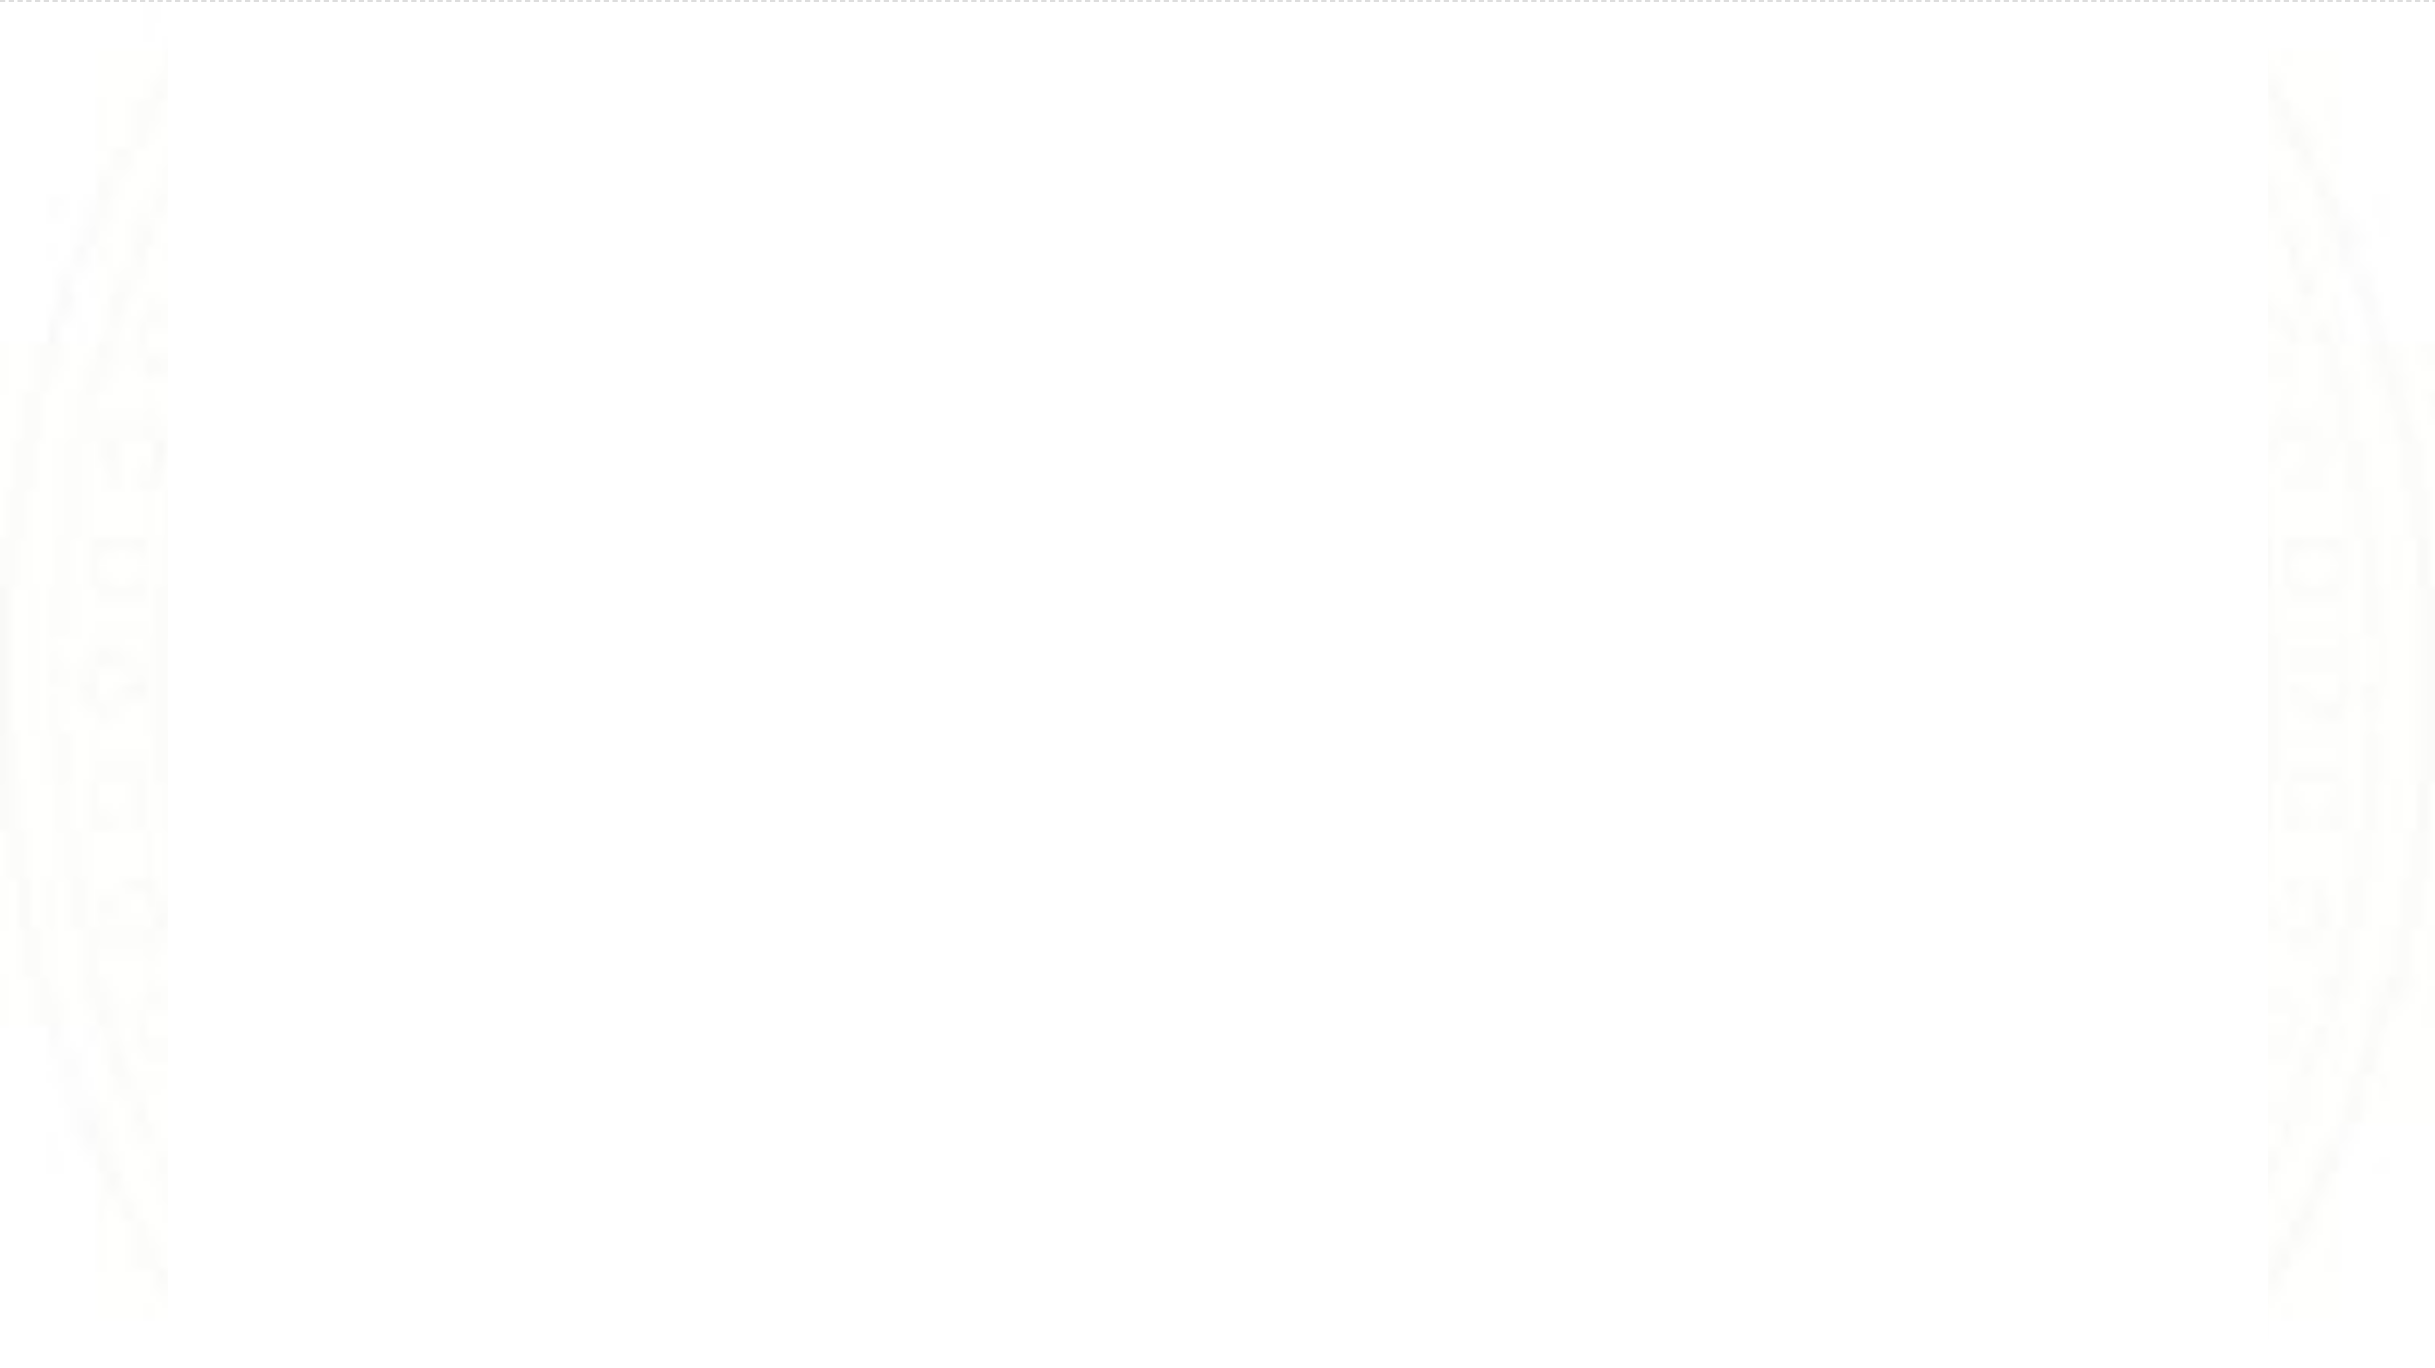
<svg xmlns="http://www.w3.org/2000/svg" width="2435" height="1368">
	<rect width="100%" height="100%" fill="#FFFFFF" />
	<image x="0" y="2" width="2435" height="1366" href="assets/img1.png" />
	<path d="M0 1H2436" fill="none" stroke="#DDDDDD" stroke-width="1.8" stroke-dasharray="5.25 3.5" />
	<rect x="168" y="2" width="2100" height="1366" fill="#FFFFFF" />
</svg>
